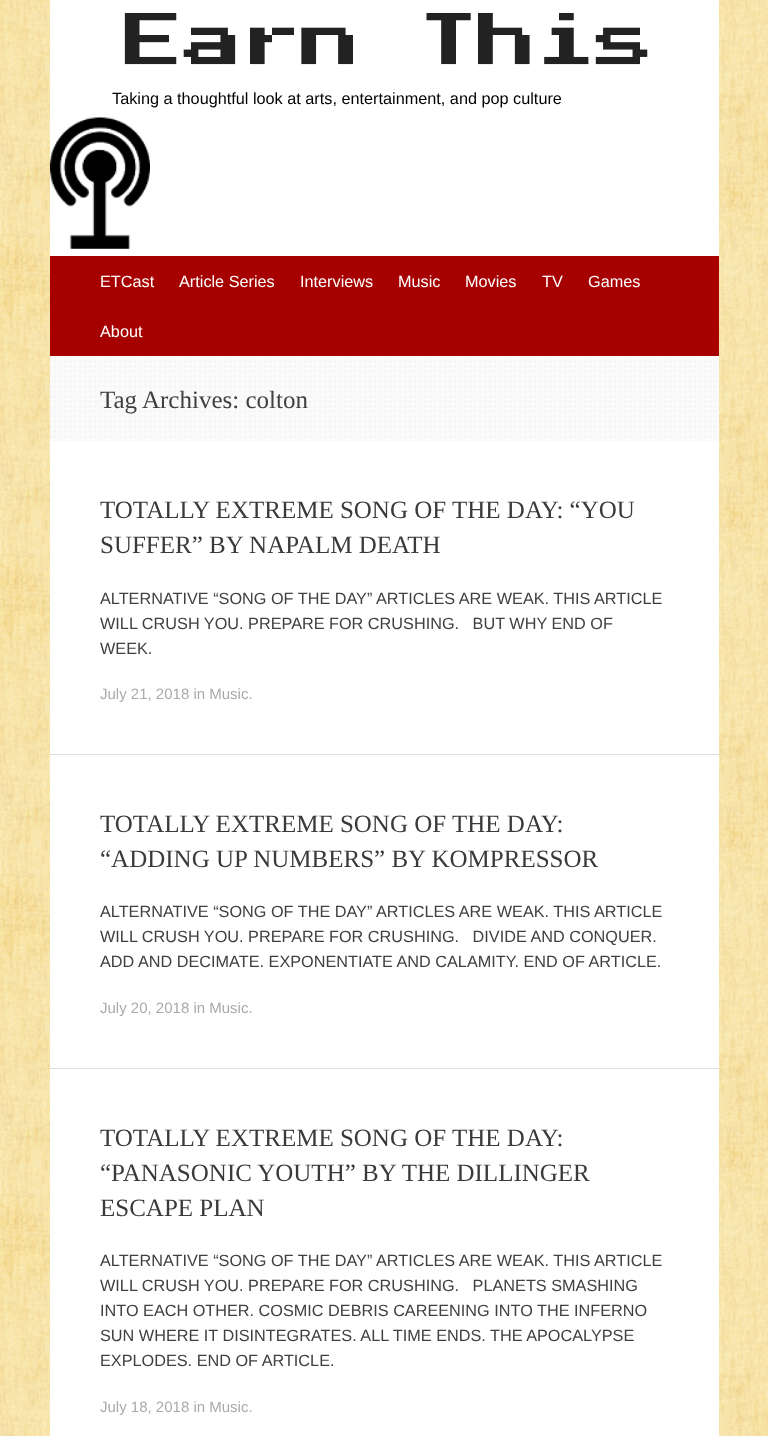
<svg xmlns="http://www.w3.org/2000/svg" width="768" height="1436">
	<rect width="100%" height="100%" fill="#FFFFFF" />
	<image x="0" y="0" width="768" height="1436" href="assets/img1.png" />
	<rect x="50" y="0" width="669" height="1436" fill="#FFFFFF" />
	<image x="124" y="13" width="524" height="52" href="assets/img2.png" />
	<text x="112" y="104" font-family="Liberation Sans" font-size="16.25" fill="#000000">Taking a thoughtful look at arts, entertainment, and pop culture</text>
	<image x="50" y="117" width="100" height="132" href="assets/img3.png" />
	<rect x="50" y="256" width="669" height="100" fill="#A60000" />
	<g font-family="Liberation Sans" font-size="16.25" fill="#FFFFFF">
		<text x="100" y="287">ETCast</text>
		<text x="179" y="287">Article Series</text>
		<text x="300" y="287">Interviews</text>
		<text x="398" y="287">Music</text>
		<text x="465" y="287">Movies</text>
		<text x="542" y="287">TV</text>
		<text x="588" y="287">Games</text>
		<text x="100" y="337">About</text>
	</g>
	<image x="50" y="356" width="669" height="85" href="assets/img4.png" />
	<text x="100" y="408" font-family="Liberation Serif" font-size="25" fill="#404040">Tag Archives: colton</text>
	<rect x="50" y="754" width="669" height="1" fill="#DDDDDD" />
	<g font-family="Liberation Serif" font-size="25" fill="#3A3A3A">
		<text x="100" y="518">TOTALLY EXTREME SONG OF THE DAY: “YOU</text>
		<text x="100" y="553">SUFFER” BY NAPALM DEATH</text>
	</g>
	<g font-family="Liberation Sans" font-size="16.25" fill="#404040">
		<text x="100" y="604">ALTERNATIVE “SONG OF THE DAY” ARTICLES ARE WEAK. THIS ARTICLE</text>
		<text x="100" y="629" xml:space="preserve">WILL CRUSH YOU. PREPARE FOR CRUSHING.   BUT WHY END OF</text>
		<text x="100" y="654">WEEK.</text>
	</g>
	<text x="100" y="699" font-family="Liberation Sans" font-size="15" fill="#AAAAAA">July 21, 2018 in Music.</text>
	<rect x="50" y="1068" width="669" height="1" fill="#DDDDDD" />
	<g font-family="Liberation Serif" font-size="25" fill="#3A3A3A">
		<text x="100" y="832">TOTALLY EXTREME SONG OF THE DAY:</text>
		<text x="100" y="867">“ADDING UP NUMBERS” BY KOMPRESSOR</text>
	</g>
	<g font-family="Liberation Sans" font-size="16.25" fill="#404040">
		<text x="100" y="917">ALTERNATIVE “SONG OF THE DAY” ARTICLES ARE WEAK. THIS ARTICLE</text>
		<text x="100" y="942" xml:space="preserve">WILL CRUSH YOU. PREPARE FOR CRUSHING.   DIVIDE AND CONQUER.</text>
		<text x="100" y="967">ADD AND DECIMATE. EXPONENTIATE AND CALAMITY. END OF ARTICLE.</text>
	</g>
	<text x="100" y="1013" font-family="Liberation Sans" font-size="15" fill="#AAAAAA">July 20, 2018 in Music.</text>
	<g font-family="Liberation Serif" font-size="25" fill="#3A3A3A">
		<text x="100" y="1146">TOTALLY EXTREME SONG OF THE DAY:</text>
		<text x="100" y="1181">“PANASONIC YOUTH” BY THE DILLINGER</text>
		<text x="100" y="1216">ESCAPE PLAN</text>
	</g>
	<g font-family="Liberation Sans" font-size="16.25" fill="#404040">
		<text x="100" y="1266">ALTERNATIVE “SONG OF THE DAY” ARTICLES ARE WEAK. THIS ARTICLE</text>
		<text x="100" y="1291" xml:space="preserve">WILL CRUSH YOU. PREPARE FOR CRUSHING.   PLANETS SMASHING</text>
		<text x="100" y="1316">INTO EACH OTHER. COSMIC DEBRIS CAREENING INTO THE INFERNO</text>
		<text x="100" y="1341">SUN WHERE IT DISINTEGRATES. ALL TIME ENDS. THE APOCALYPSE</text>
		<text x="100" y="1366">EXPLODES. END OF ARTICLE.</text>
	</g>
	<text x="100" y="1412" font-family="Liberation Sans" font-size="15" fill="#AAAAAA">July 18, 2018 in Music.</text>
</svg>
